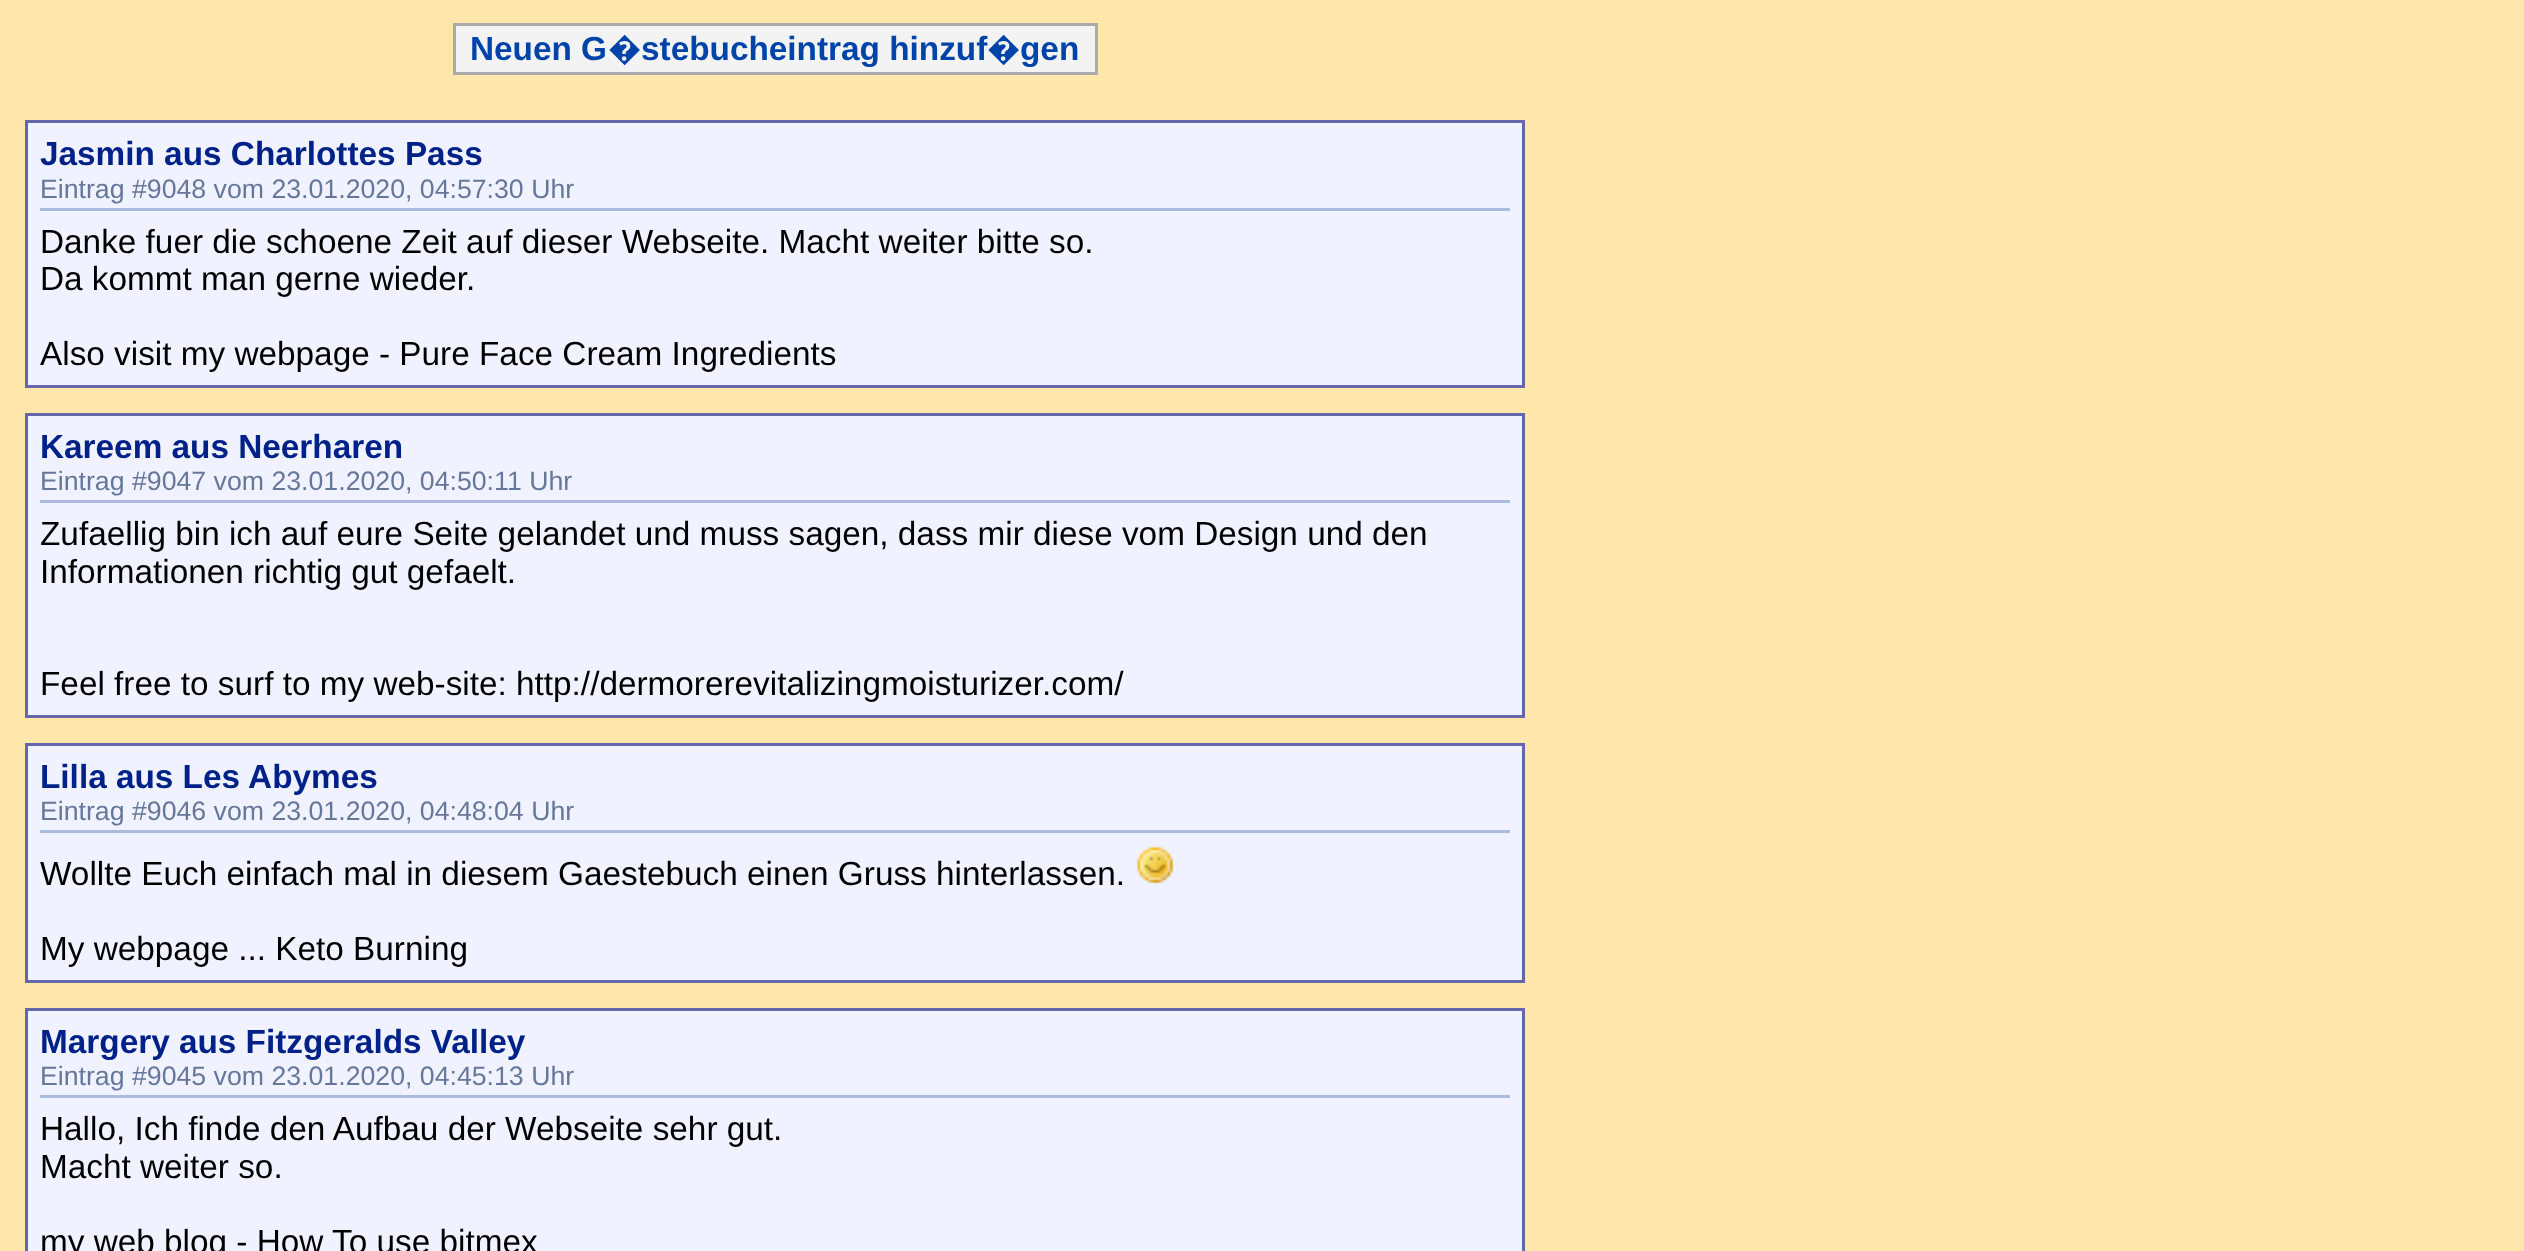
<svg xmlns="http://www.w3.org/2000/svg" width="2524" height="1251">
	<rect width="100%" height="100%" fill="#FFE7AC" />
	<rect x="454.5" y="24.5" width="642" height="49" fill="#F3F3F3" stroke="#AAAAAA" stroke-width="3" />
	<text x="470" y="60" font-family="Liberation Sans" font-size="33.35" font-weight="700" fill="#0044AA">Neuen G</text>
	<text x="608" y="60" font-family="Noto Sans" font-size="33.35" font-weight="700" fill="#0044AA">�</text>
	<text x="641" y="60" font-family="Liberation Sans" font-size="33.35" font-weight="700" fill="#0044AA">stebucheintrag hinzuf</text>
	<text x="987" y="60" font-family="Noto Sans" font-size="33.35" font-weight="700" fill="#0044AA">�</text>
	<text x="1020" y="60" font-family="Liberation Sans" font-size="33.35" font-weight="700" fill="#0044AA">gen</text>
	<rect x="26.5" y="121.5" width="1497" height="265" fill="#F0F3FF" stroke="#6666AA" stroke-width="3" />
	<text x="40" y="165" font-family="Liberation Sans" font-size="33.35" font-weight="700" fill="#002288">Jasmin aus Charlottes Pass</text>
	<rect x="40" y="208" width="1470" height="3" fill="#AABBDD" />
	<text x="40" y="198" font-family="Liberation Sans" font-size="26.7" fill="#667799">Eintrag #9048 vom 23.01.2020, 04:57:30 Uhr</text>
	<g font-family="Liberation Sans" font-size="33.35" fill="#000000">
		<text x="40" y="253">Danke fuer die schoene Zeit auf dieser Webseite. Macht weiter bitte so.</text>
		<text x="40" y="290">Da kommt man gerne wieder.</text>
		<text x="40" y="365">Also visit my webpage - Pure Face Cream Ingredients</text>
	</g>
	<rect x="26.5" y="414.5" width="1497" height="302" fill="#F0F3FF" stroke="#6666AA" stroke-width="3" />
	<text x="40" y="458" font-family="Liberation Sans" font-size="33.35" font-weight="700" fill="#002288">Kareem aus Neerharen</text>
	<rect x="40" y="500" width="1470" height="3" fill="#AABBDD" />
	<text x="40" y="490" font-family="Liberation Sans" font-size="26.7" fill="#667799">Eintrag #9047 vom 23.01.2020, 04:50:11 Uhr</text>
	<g font-family="Liberation Sans" font-size="33.35" fill="#000000">
		<text x="40" y="545">Zufaellig bin ich auf eure Seite gelandet und muss sagen, dass mir diese vom Design und den</text>
		<text x="40" y="583">Informationen richtig gut gefaelt.</text>
		<text x="40" y="695">Feel free to surf to my web-site: http://dermorerevitalizingmoisturizer.com/</text>
	</g>
	<rect x="26.5" y="744.5" width="1497" height="237" fill="#F0F3FF" stroke="#6666AA" stroke-width="3" />
	<text x="40" y="788" font-family="Liberation Sans" font-size="33.35" font-weight="700" fill="#002288">Lilla aus Les Abymes</text>
	<rect x="40" y="830" width="1470" height="3" fill="#AABBDD" />
	<text x="40" y="820" font-family="Liberation Sans" font-size="26.7" fill="#667799">Eintrag #9046 vom 23.01.2020, 04:48:04 Uhr</text>
	<text x="40" y="885" font-family="Liberation Sans" font-size="33.35" fill="#000000">Wollte Euch einfach mal in diesem Gaestebuch einen Gruss hinterlassen.</text>
	<image x="1136" y="846" width="38" height="38" href="assets/img1.png" />
	<text x="40" y="960" font-family="Liberation Sans" font-size="33.35" fill="#000000">My webpage ... Keto Burning</text>
	<rect x="26.5" y="1009.5" width="1497" height="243" fill="#F0F3FF" stroke="#6666AA" stroke-width="3" />
	<text x="40" y="1053" font-family="Liberation Sans" font-size="33.35" font-weight="700" fill="#002288">Margery aus Fitzgeralds Valley</text>
	<rect x="40" y="1095" width="1470" height="3" fill="#AABBDD" />
	<text x="40" y="1085" font-family="Liberation Sans" font-size="26.7" fill="#667799">Eintrag #9045 vom 23.01.2020, 04:45:13 Uhr</text>
	<g font-family="Liberation Sans" font-size="33.35" fill="#000000">
		<text x="40" y="1140">Hallo, Ich finde den Aufbau der Webseite sehr gut.</text>
		<text x="40" y="1178">Macht weiter so.</text>
		<text x="40" y="1253">my web blog - How To use bitmex</text>
	</g>
</svg>
